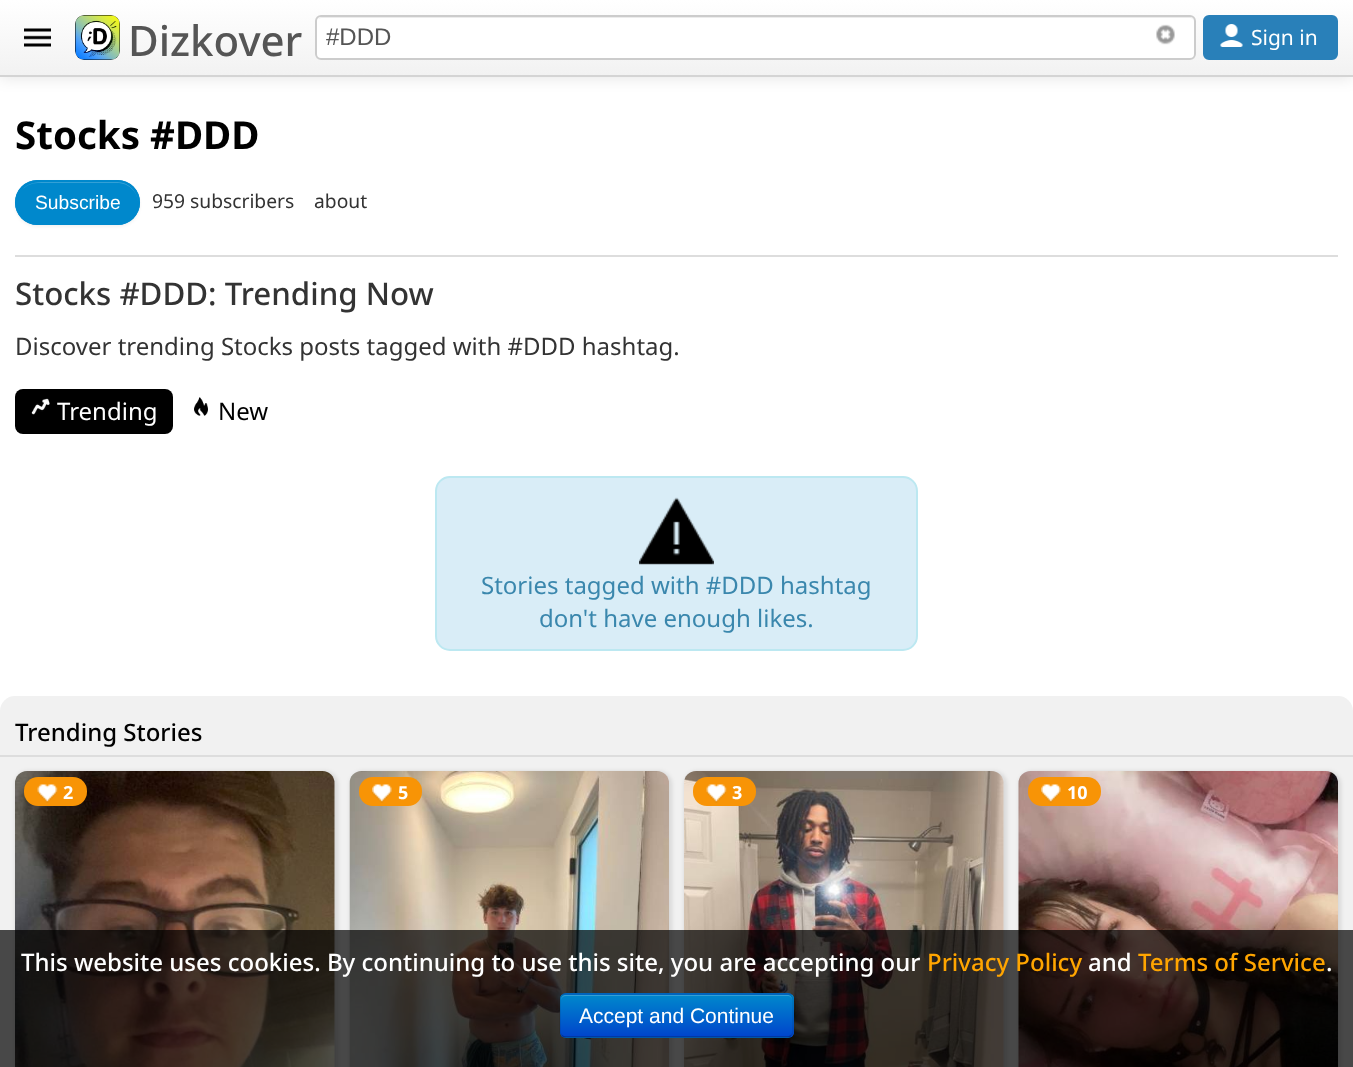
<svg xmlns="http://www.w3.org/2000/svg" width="1353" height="1067">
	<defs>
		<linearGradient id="g1" gradientUnits="userSpaceOnUse" x1="677" y1="0" x2="677" y2="75"><stop offset="0" stop-color="#FFFFFF" /><stop offset="1" stop-color="#F2F2F2" /></linearGradient>
		<clipPath id="clip1"><rect x="560" y="993" width="234" height="45" rx="6" /></clipPath>
		<linearGradient id="g2" gradientUnits="userSpaceOnUse" x1="677" y1="995" x2="677" y2="1037"><stop offset="0" stop-color="#0088CC" /><stop offset="1" stop-color="#0044CC" /></linearGradient>
	</defs>
	<rect width="100%" height="100%" fill="#FFFFFF" />
	<rect x="0" y="2" width="1353" height="76" fill="#000000" fill-opacity="0.1" filter="blur(7.5px)" />
	<rect x="0" y="0" width="1353" height="75" fill="url(#g1)" />
	<rect x="0" y="75" width="1353" height="2" fill="#D4D4D4" />
	<image x="24" y="28" width="27" height="19" href="assets/img1.png" />
	<rect x="75" y="15" width="45" height="45" rx="9" fill="#FFFFFF" />
	<image x="75" y="15" width="45" height="45" href="assets/img2.png" />
	<text x="128" y="56" font-family="Noto Sans" font-size="42" font-weight="500" fill="#555555">Dizkover</text>
	<rect x="315" y="15" width="881" height="45" rx="6" fill="#FFFFFF" />
	<path d="M321 18H1190C1192 18 1194 20 1194 22C1194 19 1192 17 1189 17H322C320 17 319 18 318 19Z" fill="#ECECEC" />
	<rect x="316" y="16" width="879" height="43" rx="5" fill="none" stroke="#CCCCCC" stroke-width="2" />
	<text x="326" y="45" font-family="Liberation Sans" font-size="24" fill="#555555">#DDD</text>
	<image x="1156" y="24" width="19" height="21" href="assets/img3.png" />
	<rect x="1204" y="16" width="133" height="43" rx="5" fill="#2980B9" stroke="#2980B9" stroke-width="2" />
	<image x="1220" y="24" width="23" height="23" href="assets/img4.png" />
	<text x="1251" y="45" font-family="Noto Sans" font-size="21" fill="#FFFFFF">Sign in</text>
	<rect x="15" y="255" width="1323" height="2" fill="#DDDDDD" />
	<text x="15" y="149" font-family="Noto Sans" font-size="38.5" font-weight="700" fill="#000000">Stocks #DDD</text>
	<rect x="15" y="182" width="125" height="45" rx="22.5" fill="#000000" fill-opacity="0.05" filter="blur(1.5px)" />
	<rect x="15" y="180" width="125" height="45" rx="22.5" fill="#0088CC" />
	<path d="M38 183H117C129 183 138 192 138 203C138 193 131 184 121 182H51C40 182 29 181 22 190C26 186 31 183 38 183Z" fill="#33A0D6" />
	<rect x="16" y="181" width="123" height="43" rx="21.5" fill="none" stroke="#0088CC" stroke-width="2" />
	<text x="35" y="209" font-family="Liberation Sans" font-size="19.25" fill="#FFFFFF">Subscribe</text>
	<g font-family="Noto Sans" font-size="19.25" fill="#333333">
		<text x="152" y="208">959 subscribers</text>
		<text x="314" y="208">about</text>
	</g>
	<text x="15" y="305" font-family="Noto Sans" font-size="31.25" font-weight="500" fill="#333333">Stocks #DDD: Trending Now</text>
	<text x="15" y="355" font-family="Noto Sans" font-size="24" fill="#333333">Discover trending Stocks posts tagged with #DDD hashtag.</text>
	<rect x="15" y="389" width="158" height="45" rx="8" fill="#000000" />
	<image x="31" y="398" width="19" height="17" href="assets/img5.png" />
	<text x="57" y="420" font-family="Noto Sans" font-size="24" fill="#FFFFFF">Trending</text>
	<image x="194" y="397" width="14" height="19" href="assets/img6.png" />
	<text x="218" y="420" font-family="Noto Sans" font-size="24" fill="#000000">New</text>
	<rect x="436" y="477" width="481" height="173" rx="14" fill="#D9EDF7" stroke="#BCE8F1" stroke-width="2" />
	<image x="639" y="497" width="75" height="68" href="assets/img7.png" />
	<g font-family="Noto Sans" font-size="24" fill="#3A87AD">
		<text x="481" y="594">Stories tagged with #DDD hashtag</text>
		<text x="539" y="627">don't have enough likes.</text>
	</g>
	<rect x="0" y="696" width="1353" height="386" rx="15" fill="#F1F1F1" />
	<rect x="0" y="755" width="1353" height="2" fill="#DDDDDD" />
	<text x="15" y="741" font-family="Noto Sans" font-size="24" font-weight="500" fill="#000000">Trending Stories</text>
	<rect x="15" y="771" width="323" height="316" rx="14" fill="#000000" fill-opacity="0.1" filter="blur(2px)" />
	<rect x="15" y="771" width="320" height="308" rx="12" fill="#DDDDDD" />
	<image x="15" y="771" width="320" height="296" href="assets/img8.png" />
	<rect x="24" y="777" width="63" height="29" rx="14" fill="#F89406" />
	<image x="37" y="784" width="21" height="19" href="assets/img9.png" />
	<text x="63" y="799" font-family="Noto Sans" font-size="18" font-weight="700" fill="#FFFFFF">2</text>
	<rect x="350" y="771" width="322" height="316" rx="14" fill="#000000" fill-opacity="0.1" filter="blur(2px)" />
	<image x="349" y="771" width="320" height="296" href="assets/img10.png" />
	<rect x="359" y="777" width="63" height="29" rx="14" fill="#F89406" />
	<image x="372" y="784" width="20" height="19" href="assets/img11.png" />
	<text x="398" y="799" font-family="Noto Sans" font-size="18" font-weight="700" fill="#FFFFFF">5</text>
	<rect x="684" y="771" width="323" height="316" rx="14" fill="#000000" fill-opacity="0.1" filter="blur(2px)" />
	<rect x="684" y="771" width="320" height="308" rx="12" fill="#DDDDDD" />
	<image x="684" y="771" width="320" height="296" href="assets/img12.png" />
	<rect x="693" y="777" width="63" height="29" rx="14" fill="#F89406" />
	<image x="706" y="784" width="21" height="19" href="assets/img13.png" />
	<text x="732" y="799" font-family="Noto Sans" font-size="18" font-weight="700" fill="#FFFFFF">3</text>
	<rect x="1019" y="771" width="322" height="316" rx="14" fill="#000000" fill-opacity="0.1" filter="blur(2px)" />
	<image x="1018" y="771" width="320" height="296" href="assets/img14.png" />
	<rect x="1028" y="777" width="73" height="29" rx="14" fill="#F89406" />
	<image x="1041" y="784" width="20" height="19" href="assets/img11.png" />
	<text x="1067" y="799" font-family="Noto Sans" font-size="18" font-weight="700" fill="#FFFFFF">10</text>
	<rect x="0" y="930" width="1353" height="137" fill="#000000" fill-opacity="0.7" />
	<text x="21" y="971" font-family="Noto Sans" font-size="24" font-weight="500" fill="#FFFFFF">This website uses cookies. By continuing to use this site, you are accepting our</text>
	<text x="927" y="971" font-family="Noto Sans" font-size="24" font-weight="500" fill="#FFA500">Privacy Policy</text>
	<text x="1088" y="971" font-family="Noto Sans" font-size="24" font-weight="500" fill="#FFFFFF">and</text>
	<text x="1138" y="971" font-family="Noto Sans" font-size="24" font-weight="500" fill="#FFA500">Terms of Service</text>
	<text x="1326" y="971" font-family="Noto Sans" font-size="24" font-weight="500" fill="#FFFFFF">.</text>
	<rect x="560" y="993" width="234" height="45" rx="6" fill="#006DCC" />
	<g clip-path="url(#clip1)">
		<rect x="560" y="995" width="234" height="42" fill="url(#g2)" />
	</g>
	<path d="M566 996H788C790 996 792 998 792 1000C792 997 790 995 787 995H566C563 995 561 997 561 1000C561 998 563 996 566 996Z" fill="#339FD6" />
	<path d="M791 1035.5C790 1036.5 789 1037 787.5 1037H565.5C564 1037 563 1036.5 562 1035.5" fill="none" stroke="#000000" stroke-opacity="0.25" stroke-width="1.5" />
	<path d="M562 1035.5C561 1034.5 560 1033.5 560 1032V999C560 997.5 561 996.5 562 995.5C563 994.5 564 994 565.5 994H787.5C789 994 790 994.5 791 995.5C792 996.5 793 997.5 793 999V1032C793 1033.5 792 1034.5 791 1035.5" fill="none" stroke="#000000" stroke-opacity="0.1" stroke-width="1.5" />
	<text x="579" y="1023" font-family="Liberation Sans" font-size="21" fill="#FFFFFF">Accept and Continue</text>
</svg>
